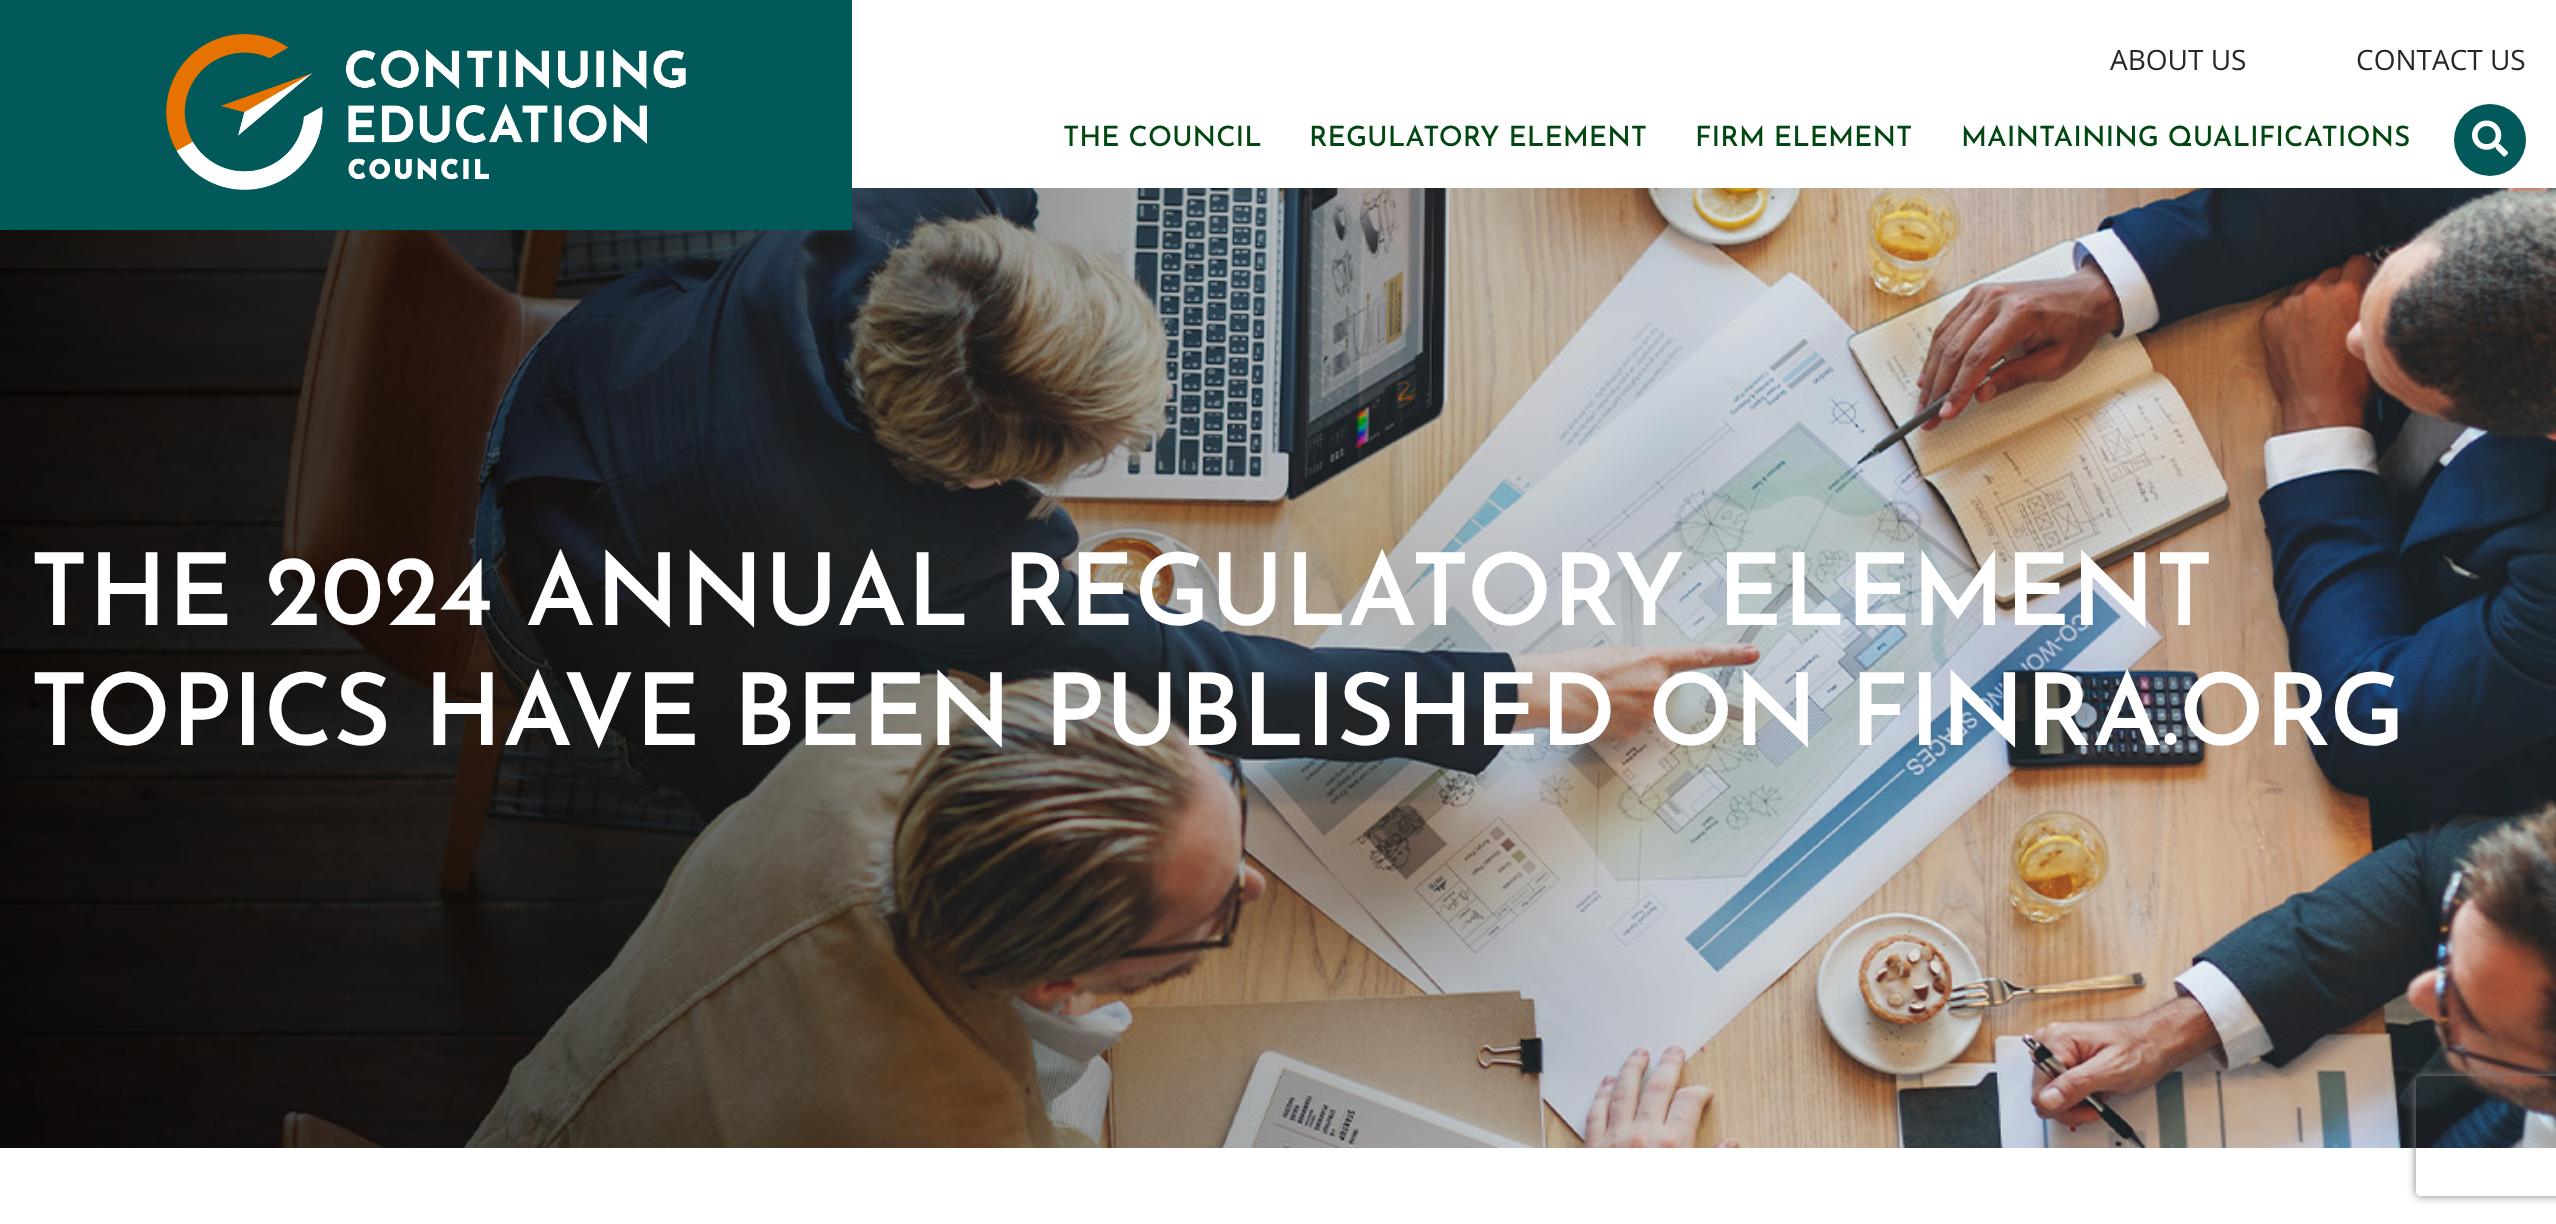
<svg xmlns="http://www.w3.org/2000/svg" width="2556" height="1224">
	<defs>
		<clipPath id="clip1"><path d="M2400 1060H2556V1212H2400ZM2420 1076H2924C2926 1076 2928 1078 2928 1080V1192C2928 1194 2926 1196 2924 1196H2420C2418 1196 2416 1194 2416 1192V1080C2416 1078 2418 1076 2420 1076Z" clip-rule="evenodd" /></clipPath>
	</defs>
	<rect width="100%" height="100%" fill="#FFFFFF" />
	<image x="0" y="188" width="2556" height="960" href="assets/img3.png" />
	<rect x="0" y="0" width="852" height="230" fill="#015959" />
	<image x="166" y="34" width="520" height="156" href="assets/img1.png" />
	<g font-family="Open Sans" font-size="28" fill="#272727">
		<text x="2110" y="70">ABOUT US</text>
		<text x="2356" y="70">CONTACT US</text>
	</g>
	<g font-family="Josefin Sans" font-size="28" font-weight="500" fill="#004711">
		<text x="1063" y="146">THE COUNCIL</text>
		<text x="1309" y="146">REGULATORY ELEMENT</text>
		<text x="1695" y="146">FIRM ELEMENT</text>
		<text x="1961" y="146">MAINTAINING QUALIFICATIONS</text>
	</g>
	<circle cx="2490" cy="140" r="36" fill="#015959" />
	<image x="2472" y="120" width="36" height="37" href="assets/img2.png" />
	<g font-family="Josefin Sans" font-size="100" font-weight="600" fill="#FFFFFF">
		<text x="30" y="625">THE 2024 ANNUAL REGULATORY ELEMENT</text>
		<text x="30" y="745">TOPICS HAVE BEEN PUBLISHED ON FINRA.ORG</text>
	</g>
	<g clip-path="url(#clip1)">
		<rect x="2416" y="1076" width="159" height="120" rx="4" fill="#808080" filter="blur(5px)" />
	</g>
</svg>
